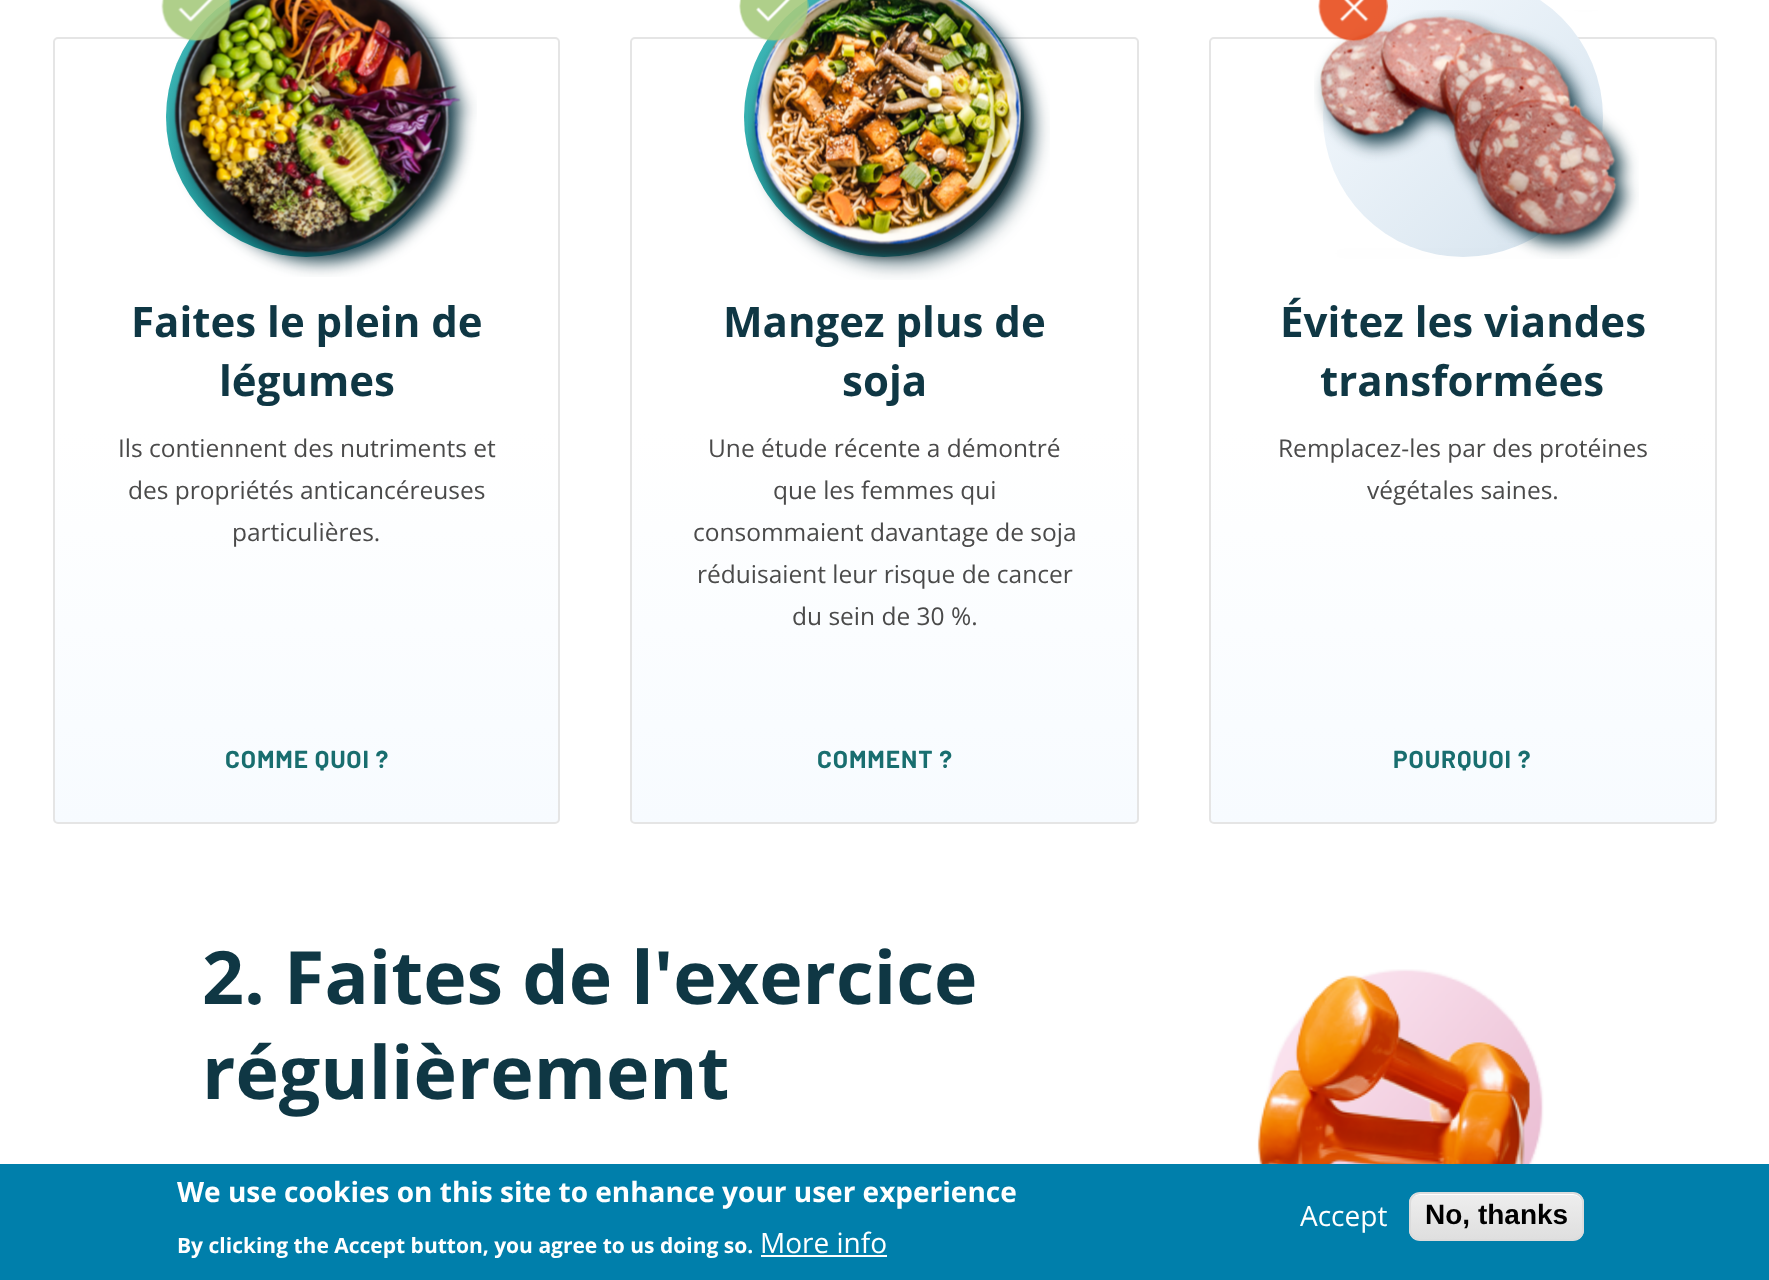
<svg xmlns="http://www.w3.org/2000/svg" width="1769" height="1280">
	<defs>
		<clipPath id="clip1"><rect x="53" y="37" width="507" height="787" rx="5" /></clipPath>
		<linearGradient id="g1" gradientUnits="userSpaceOnUse" x1="306" y1="38" x2="306" y2="823"><stop offset="0" stop-color="#FFFFFF" /><stop offset="0.5" stop-color="#FFFFFF" /><stop offset="1" stop-color="#F7FBFF" /></linearGradient>
		<linearGradient id="g2" gradientUnits="userSpaceOnUse" x1="166" y1="-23" x2="446" y2="257"><stop offset="0" stop-color="#47BFBF" /><stop offset="1" stop-color="#007F80" /></linearGradient>
		<clipPath id="clip2"><rect x="630" y="37" width="509" height="787" rx="5" /></clipPath>
		<linearGradient id="g3" gradientUnits="userSpaceOnUse" x1="885" y1="38" x2="885" y2="823"><stop offset="0" stop-color="#FFFFFF" /><stop offset="0.5" stop-color="#FFFFFF" /><stop offset="1" stop-color="#F7FBFF" /></linearGradient>
		<linearGradient id="g4" gradientUnits="userSpaceOnUse" x1="744" y1="-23" x2="1024" y2="257"><stop offset="0" stop-color="#47BFBF" /><stop offset="1" stop-color="#007F80" /></linearGradient>
		<clipPath id="clip3"><rect x="1209" y="37" width="508" height="787" rx="5" /></clipPath>
		<linearGradient id="g5" gradientUnits="userSpaceOnUse" x1="1463" y1="38" x2="1463" y2="823"><stop offset="0" stop-color="#FFFFFF" /><stop offset="0.5" stop-color="#FFFFFF" /><stop offset="1" stop-color="#F7FBFF" /></linearGradient>
		<linearGradient id="g6" gradientUnits="userSpaceOnUse" x1="1323" y1="-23" x2="1603" y2="257"><stop offset="0" stop-color="#F7FBFF" /><stop offset="1" stop-color="#D4E2ED" /></linearGradient>
		<clipPath id="clip4"><rect x="1409" y="1192" width="175" height="49" rx="11" /></clipPath>
		<linearGradient id="g7" gradientUnits="userSpaceOnUse" x1="1496" y1="1194" x2="1496" y2="1239"><stop offset="0.05" stop-color="#EDEDED" /><stop offset="1" stop-color="#DFDFDF" /></linearGradient>
	</defs>
	<rect width="100%" height="100%" fill="#FFFFFF" />
	<g clip-path="url(#clip1)">
		<rect x="53" y="39" width="507" height="784" fill="url(#g1)" />
	</g>
	<rect x="54" y="38" width="505" height="785" rx="4" fill="none" stroke="#E5E5E5" stroke-width="2" />
	<circle cx="306" cy="117" r="140" fill="url(#g2)" />
	<image x="169" y="0" width="308" height="277" href="assets/img2.png" />
	<image x="161" y="0" width="71" height="42" href="assets/img1.png" />
	<g font-family="Open Sans" font-size="42" font-weight="700" fill="#0F3744">
		<text x="131" y="337">Faites le plein de</text>
		<text x="219" y="396">légumes</text>
	</g>
	<g font-family="Open Sans" font-size="24.5" fill="#4A4A4A">
		<text x="118" y="457">Ils contiennent des nutriments et</text>
		<text x="128" y="499">des propriétés anticancéreuses</text>
		<text x="232" y="541">particulières.</text>
	</g>
	<text x="225" y="768" font-family="Barlow" font-size="24.5" font-weight="700" letter-spacing="0.9" fill="#196E6F">COMME QUOI ?</text>
	<g clip-path="url(#clip2)">
		<rect x="630" y="39" width="509" height="784" fill="url(#g3)" />
	</g>
	<rect x="631" y="38" width="507" height="785" rx="4" fill="none" stroke="#E5E5E5" stroke-width="2" />
	<circle cx="884" cy="117" r="140" fill="url(#g4)" />
	<image x="748" y="0" width="302" height="280" href="assets/img4.png" />
	<image x="739" y="0" width="70" height="42" href="assets/img3.png" />
	<g font-family="Open Sans" font-size="42" font-weight="700" fill="#0F3744">
		<text x="723" y="337">Mangez plus de</text>
		<text x="842" y="396">soja</text>
	</g>
	<g font-family="Open Sans" font-size="24.5" fill="#4A4A4A">
		<text x="708" y="457">Une étude récente a démontré</text>
		<text x="773" y="499">que les femmes qui</text>
		<text x="693" y="541">consommaient davantage de soja</text>
		<text x="697" y="583">réduisaient leur risque de cancer</text>
		<text x="792" y="625">du sein de 30 %.</text>
	</g>
	<text x="817" y="768" font-family="Barlow" font-size="24.5" font-weight="700" letter-spacing="0.9" fill="#196E6F">COMMENT ?</text>
	<g clip-path="url(#clip3)">
		<rect x="1209" y="39" width="508" height="784" fill="url(#g5)" />
	</g>
	<rect x="1210" y="38" width="506" height="785" rx="4" fill="none" stroke="#E5E5E5" stroke-width="2" />
	<circle cx="1463" cy="117" r="140" fill="url(#g6)" />
	<image x="1314" y="10" width="325" height="249" href="assets/img6.png" />
	<image x="1318" y="0" width="71" height="42" href="assets/img5.png" />
	<g font-family="Open Sans" font-size="42" font-weight="700" fill="#0F3744">
		<text x="1280" y="337">Évitez les viandes</text>
		<text x="1320" y="396">transformées</text>
	</g>
	<g font-family="Open Sans" font-size="24.5" fill="#4A4A4A">
		<text x="1278" y="457">Remplacez-les par des protéines</text>
		<text x="1367" y="499">végétales saines.</text>
	</g>
	<text x="1393" y="768" font-family="Barlow" font-size="24.5" font-weight="700" letter-spacing="0.9" fill="#196E6F">POURQUOI ?</text>
	<g font-family="Open Sans" font-size="73.5" font-weight="700" fill="#0F3744">
		<text x="202" y="1004">2. Faites de l'exercice</text>
		<text x="202" y="1099">régulièrement</text>
	</g>
	<image x="1257" y="969" width="287" height="195" href="assets/img7.png" />
	<rect x="0" y="1164" width="1769" height="116" fill="#007FAB" />
	<text x="177" y="1202" font-family="Open Sans" font-size="28" font-weight="700" fill="#FFFFFF">We use cookies on this site to enhance your user experience</text>
	<text x="177" y="1253" font-family="Open Sans" font-size="21" font-weight="700" fill="#FFFFFF">By clicking the Accept button, you agree to us doing so.</text>
	<text x="760" y="1253" font-family="Open Sans" font-size="28" fill="#FFFFFF">More info</text>
	<rect x="761" y="1255" width="126" height="2" fill="#FFFFFF" />
	<text x="1300" y="1226" font-family="Open Sans" font-size="28" fill="#FFFFFF">Accept</text>
	<g clip-path="url(#clip4)">
		<rect x="1409" y="1194" width="175" height="45" fill="url(#g7)" />
	</g>
	<path d="M1419 1195H1573C1578 1195 1582 1199 1582 1204V1203C1582 1198 1578 1194 1573 1194H1420C1417 1194 1415 1195 1413 1197C1415 1196 1417 1195 1419 1195Z" fill="#FFFFFF" />
	<rect x="1410" y="1193" width="173" height="47" rx="10" fill="none" stroke="#DCDCDC" stroke-width="2" />
	<text x="1425" y="1224" font-family="Liberation Sans" font-size="28" font-weight="700" fill="#000000">No, thanks</text>
</svg>
